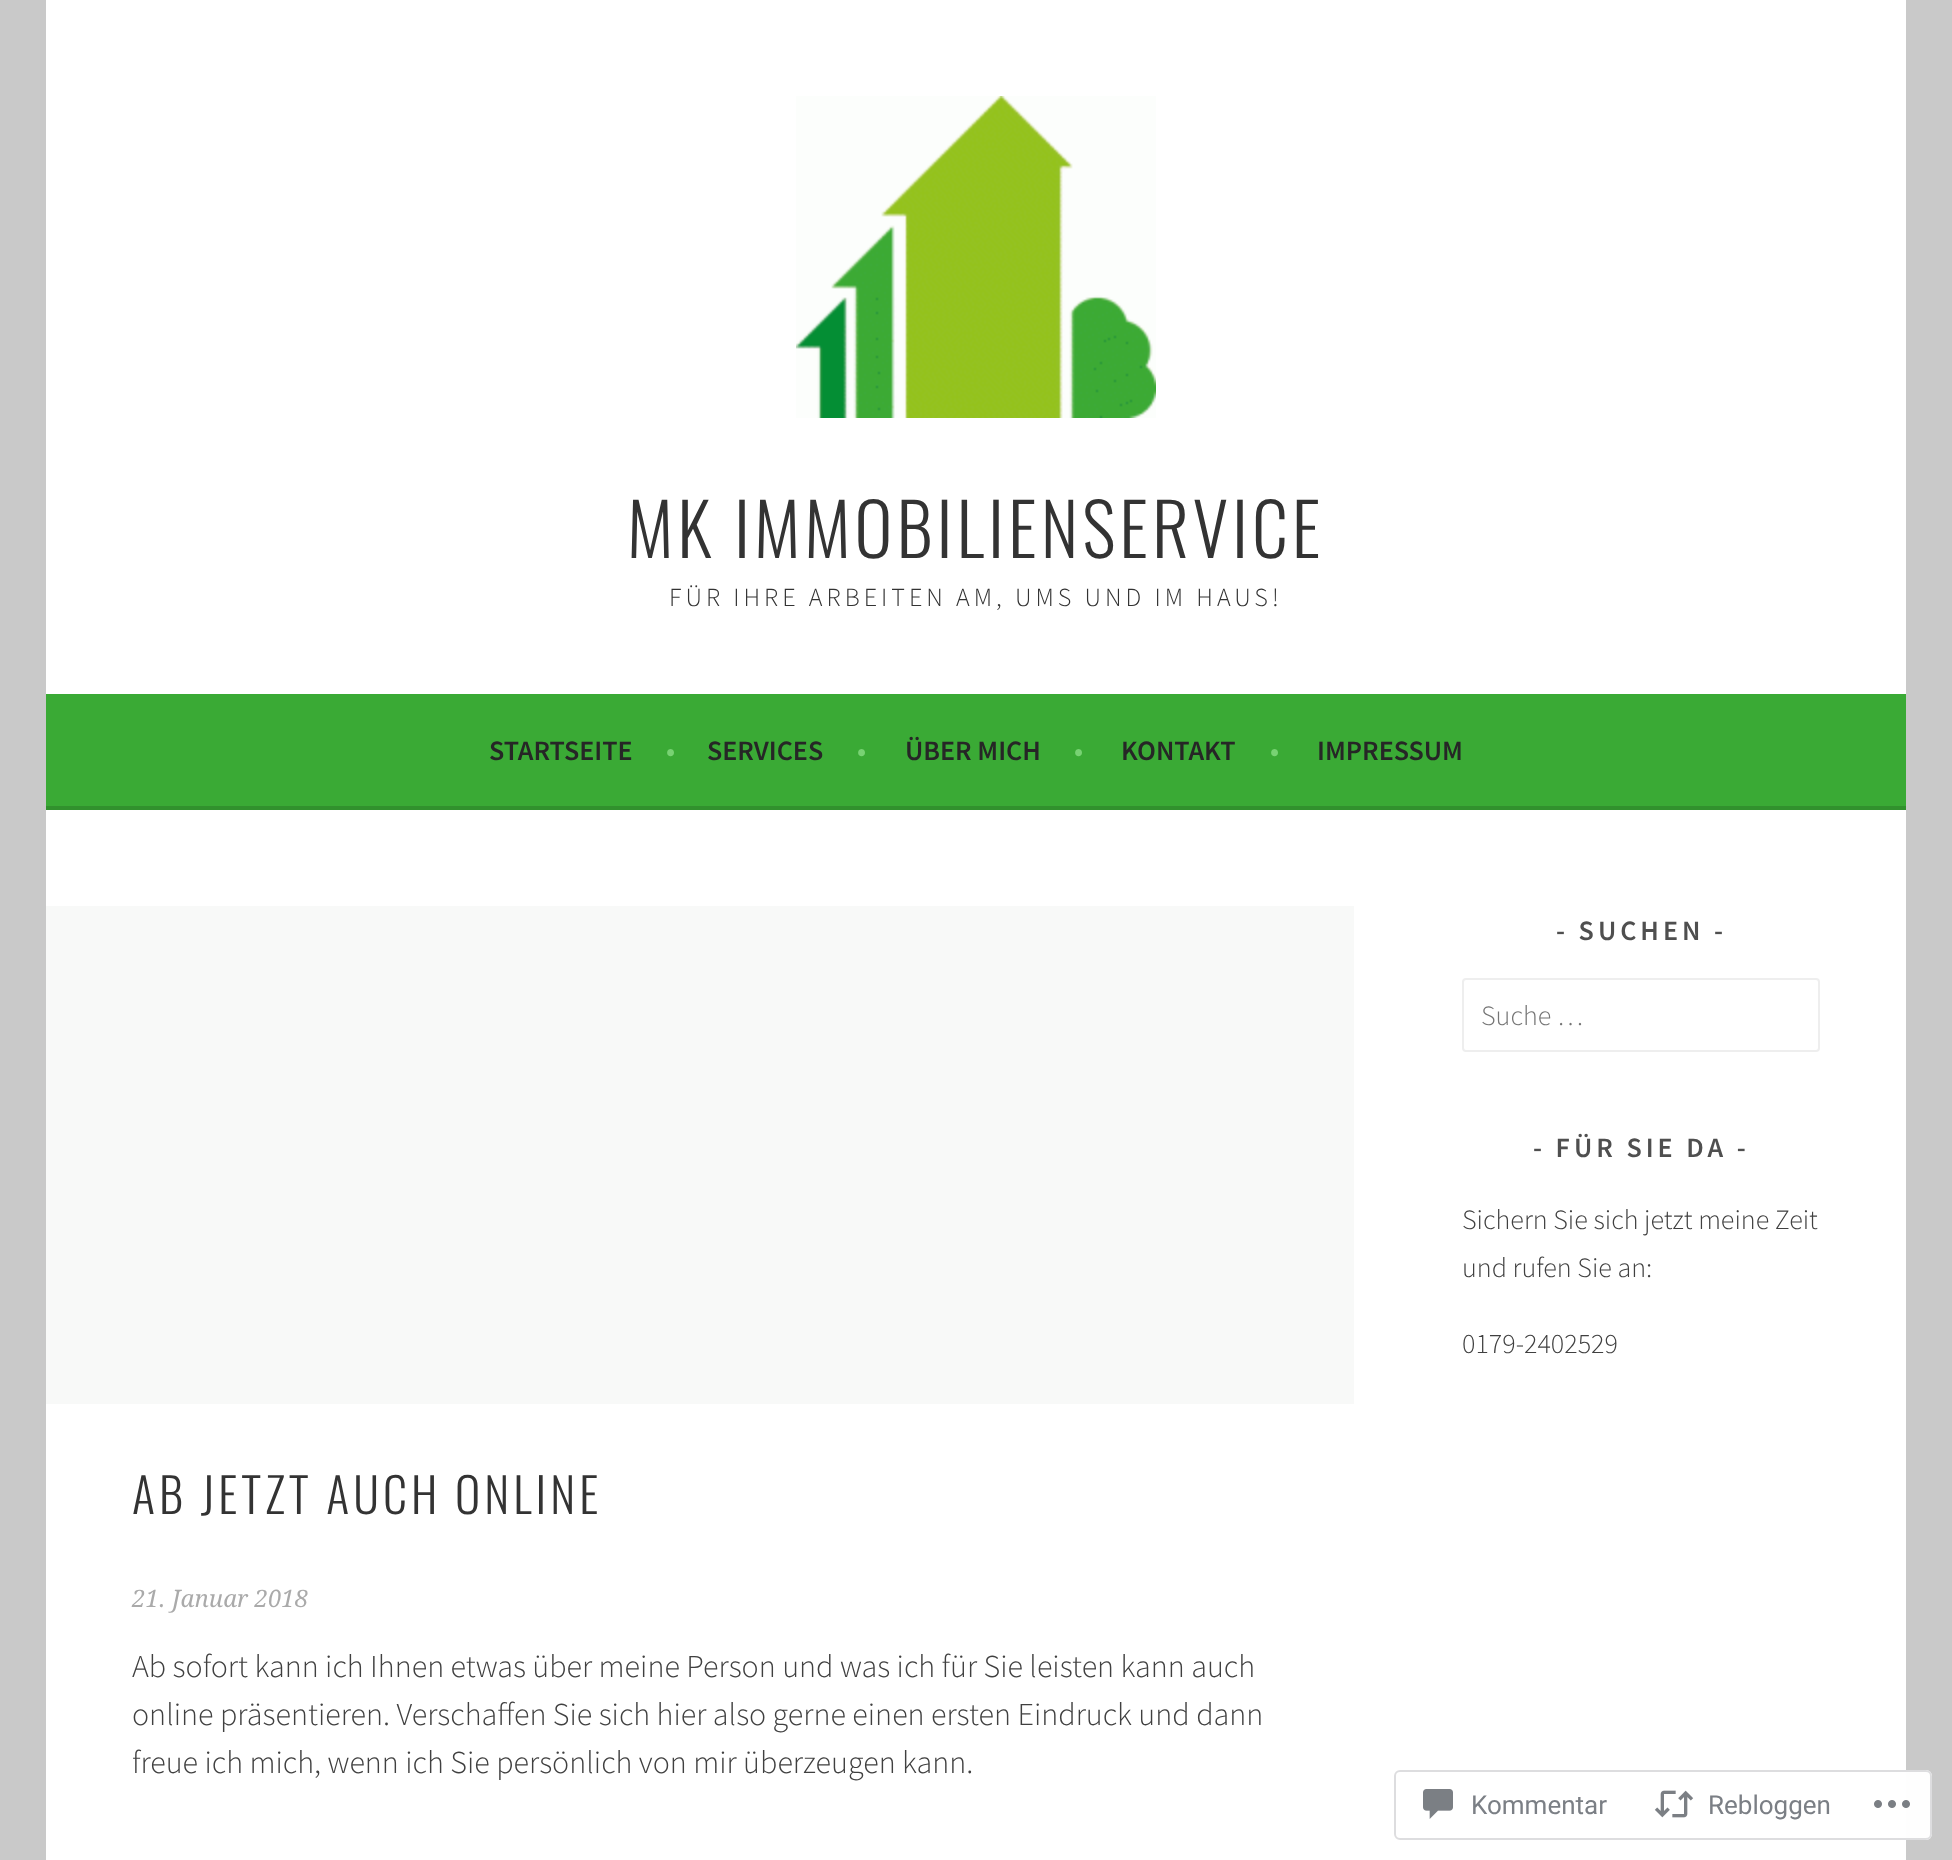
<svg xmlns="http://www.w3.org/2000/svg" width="1952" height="1860">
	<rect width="100%" height="100%" fill="#C9C9C9" />
	<rect x="46" y="0" width="1860" height="694" fill="#FFFFFF" />
	<image x="796" y="96" width="360" height="322" href="assets/img1.png" />
	<text x="627" y="558" font-family="Oswald" font-size="72" font-weight="300" letter-spacing="4" fill="#333333">MK IMMOBILIENSERVICE</text>
	<text x="669" y="606" font-family="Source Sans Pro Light" font-size="26" font-weight="300" letter-spacing="4" fill="#333333">FÜR IHRE ARBEITEN AM, UMS UND IM HAUS!</text>
	<rect x="46" y="694" width="1860" height="112" fill="#3AAA35" />
	<rect x="46" y="806" width="1860" height="4" fill="#31912D" />
	<text x="489" y="760" font-family="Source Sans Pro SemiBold" font-size="28" font-weight="600" fill="#262626">STARTSEITE</text>
	<text x="666" y="760" font-family="Source Sans Pro SemiBold" font-size="28" font-weight="600" fill="#78D273">•</text>
	<text x="707" y="760" font-family="Source Sans Pro SemiBold" font-size="28" font-weight="600" fill="#262626">SERVICES</text>
	<text x="857" y="760" font-family="Source Sans Pro SemiBold" font-size="28" font-weight="600" fill="#78D273">•</text>
	<text x="905" y="760" font-family="Source Sans Pro SemiBold" font-size="28" font-weight="600" fill="#262626">ÜBER MICH</text>
	<text x="1074" y="760" font-family="Source Sans Pro SemiBold" font-size="28" font-weight="600" fill="#78D273">•</text>
	<text x="1121" y="760" font-family="Source Sans Pro SemiBold" font-size="28" font-weight="600" fill="#262626">KONTAKT</text>
	<text x="1270" y="760" font-family="Source Sans Pro SemiBold" font-size="28" font-weight="600" fill="#78D273">•</text>
	<text x="1317" y="760" font-family="Source Sans Pro SemiBold" font-size="28" font-weight="600" fill="#262626">IMPRESSUM</text>
	<rect x="46" y="810" width="1860" height="1050" fill="#FFFFFF" />
	<text x="1556" y="940" font-family="Source Sans Pro SemiBold" font-size="28" font-weight="600" letter-spacing="4" fill="#4F4F4F">- SUCHEN -</text>
	<rect x="1463" y="979" width="356" height="72" rx="3" fill="none" stroke="#EEEEEE" stroke-width="2" />
	<text x="1481" y="1025" font-family="Source Sans Pro Light" font-size="28" font-weight="300" fill="#757575">Suche …</text>
	<text x="1533" y="1157" font-family="Source Sans Pro SemiBold" font-size="28" font-weight="600" letter-spacing="4" fill="#4F4F4F">- FÜR SIE DA -</text>
	<g font-family="Source Sans Pro Light" font-size="28" font-weight="300" fill="#404040">
		<text x="1462" y="1229">Sichern Sie sich jetzt meine Zeit</text>
		<text x="1462" y="1277">und rufen Sie an:</text>
		<text x="1462" y="1353">0179-2402529</text>
	</g>
	<rect x="46" y="906" width="1308" height="498" fill="#F8F9F8" />
	<text x="132" y="1514" font-family="Oswald" font-size="48" font-weight="300" letter-spacing="4" fill="#333333">AB JETZT AUCH ONLINE</text>
	<text x="132" y="1607" font-family="Droid Serif" font-size="24" font-style="italic" fill="#AAAAAA">21. Januar 2018</text>
	<g font-family="Source Sans Pro Light" font-size="32" font-weight="300" fill="#404040">
		<text x="132" y="1677">Ab sofort kann ich Ihnen etwas über meine Person und was ich für Sie leisten kann auch</text>
		<text x="132" y="1725">online präsentieren. Verschaffen Sie sich hier also gerne einen ersten Eindruck und dann</text>
		<text x="132" y="1773">freue ich mich, wenn ich Sie persönlich von mir überzeugen kann.</text>
	</g>
	<rect x="1394" y="1770" width="538" height="70" rx="6" fill="#FFFFFF" fill-opacity="0.98" />
	<rect x="1395" y="1771" width="536" height="68" rx="5" fill="none" stroke="#DCDCDE" stroke-opacity="0.98" stroke-width="2" />
	<image x="1423" y="1789" width="30" height="30" href="assets/img2.png" />
	<text x="1471" y="1814" font-family="Roboto" font-size="26" fill="#7B7F85">Kommentar</text>
	<image x="1654" y="1790" width="40" height="28" href="assets/img3.png" />
	<text x="1708" y="1814" font-family="Roboto" font-size="26" fill="#7B7F85">Rebloggen</text>
	<image x="1874" y="1800" width="36" height="8" href="assets/img4.png" />
</svg>
